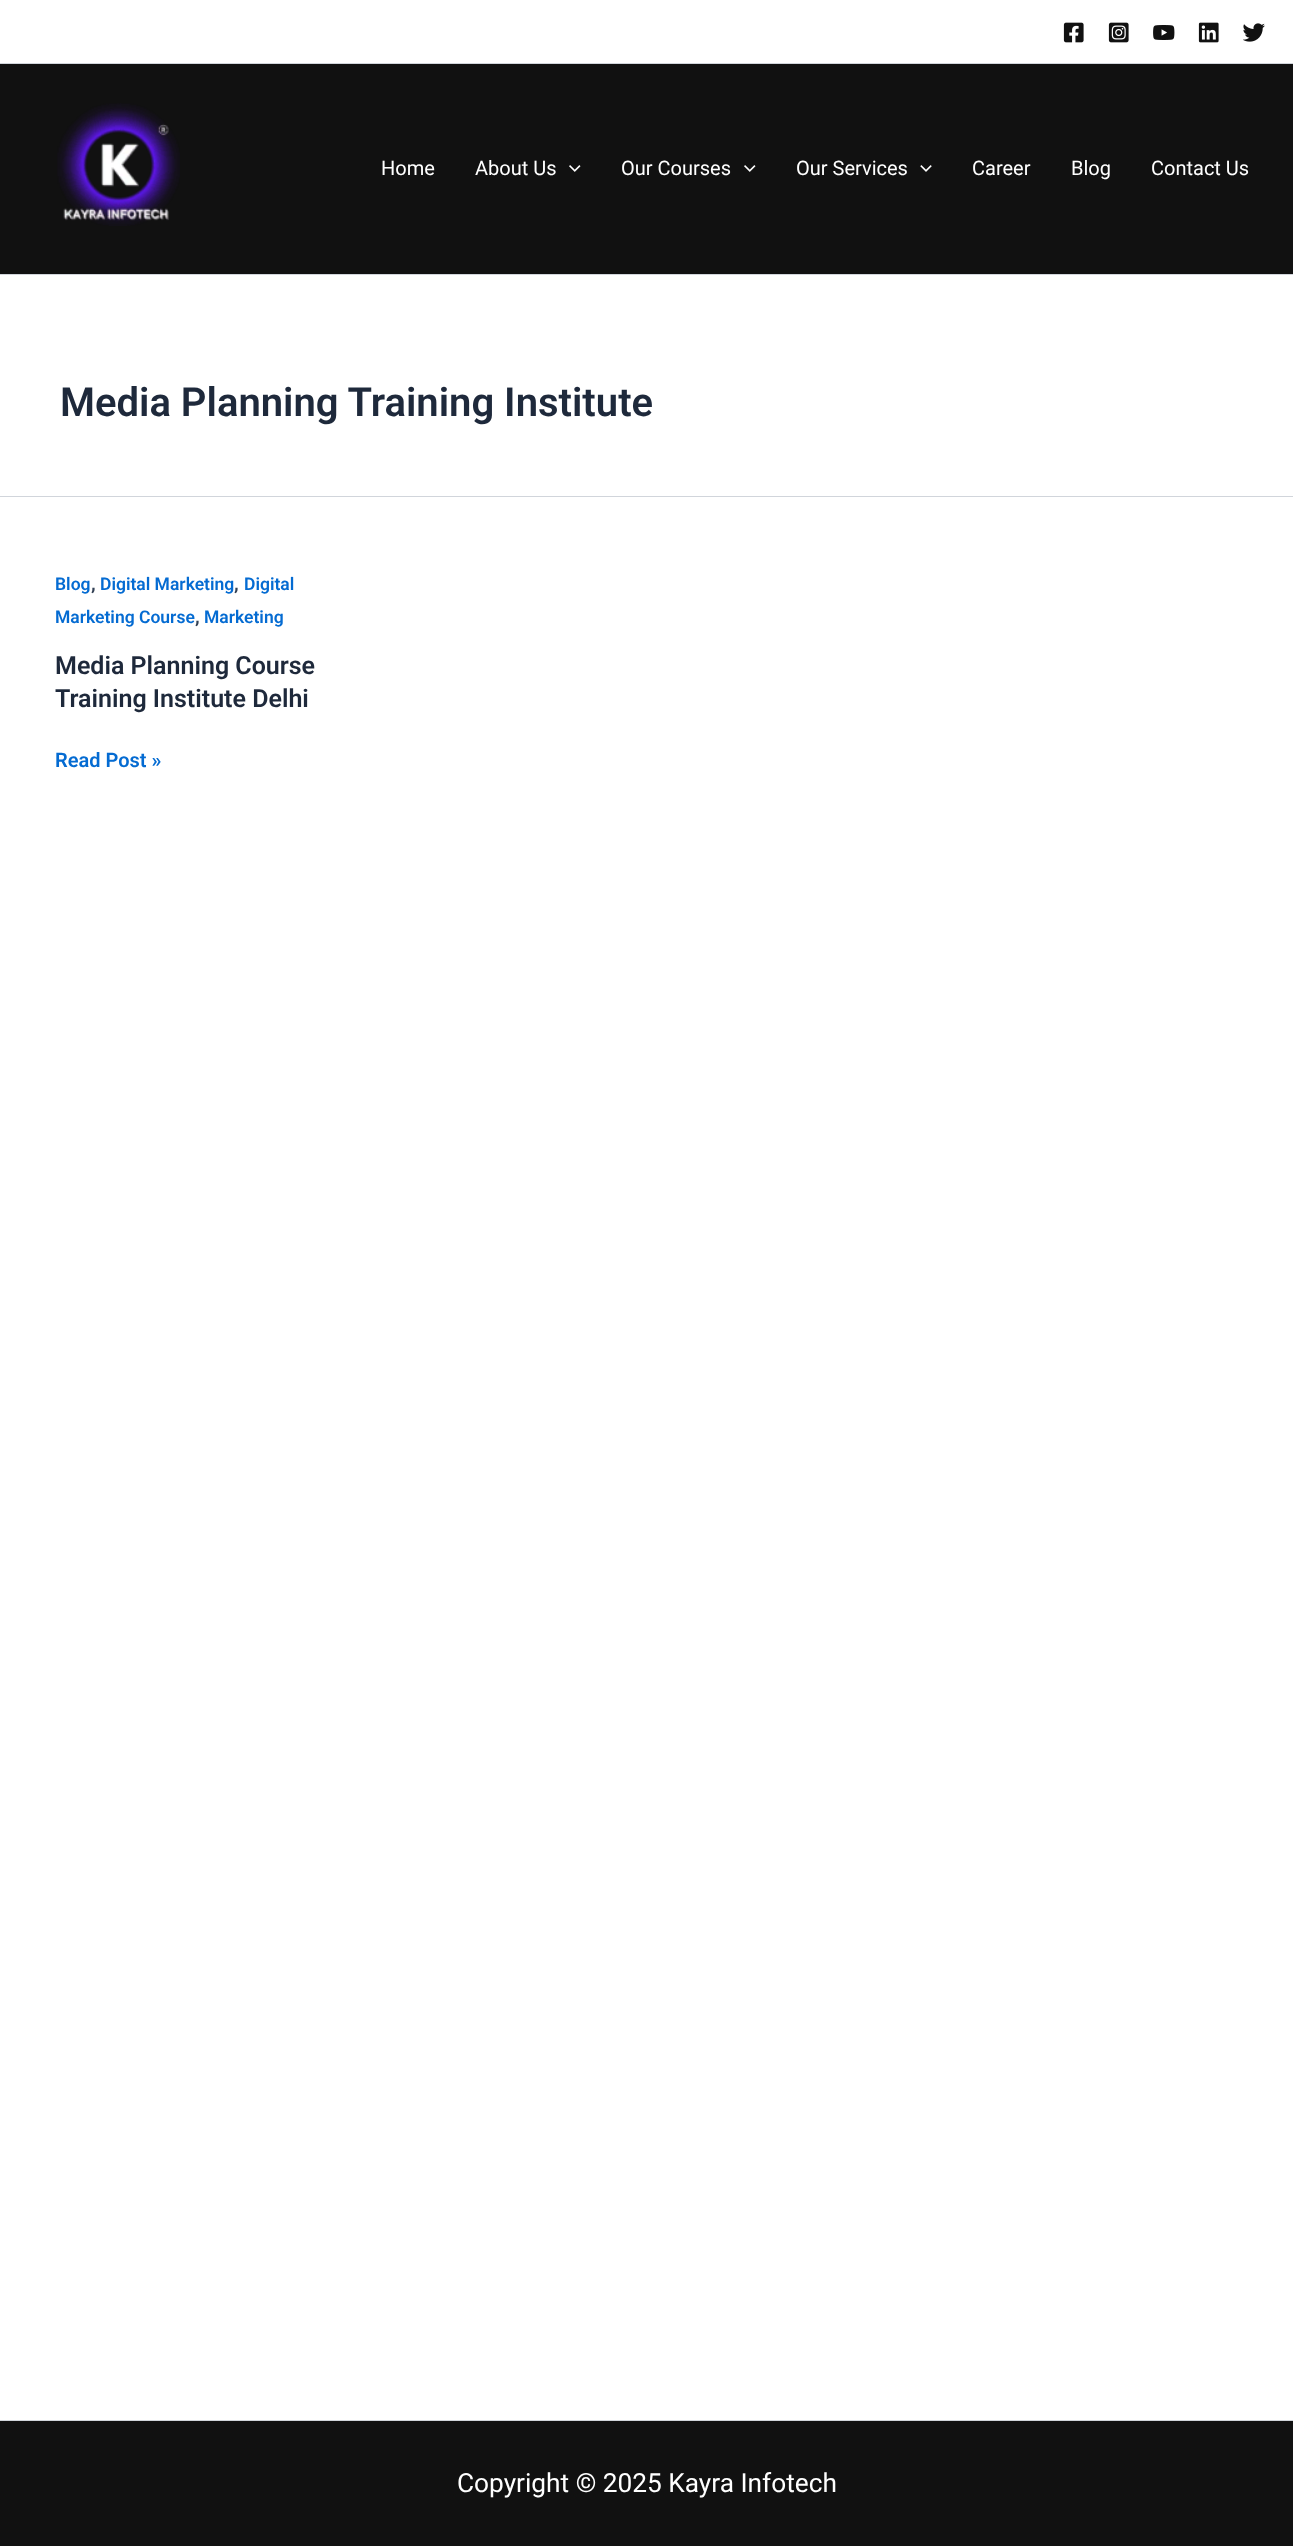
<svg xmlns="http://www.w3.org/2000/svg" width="1293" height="2546">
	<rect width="100%" height="100%" fill="#FFFFFF" />
	<rect x="0" y="63" width="1293" height="1" fill="#D1D5DB" />
	<image x="1063" y="22" width="21" height="21" href="assets/img1.png" />
	<image x="1108" y="22" width="21" height="21" href="assets/img2.png" />
	<image x="1153" y="25" width="22" height="15" href="assets/img3.png" />
	<image x="1198" y="22" width="21" height="21" href="assets/img4.png" />
	<image x="1243" y="23" width="22" height="19" href="assets/img5.png" />
	<rect x="0" y="64" width="1293" height="210" fill="#111111" />
	<rect x="0" y="274" width="1293" height="1" fill="#D1D5DB" />
	<image x="57" y="103" width="123" height="123" href="assets/img6.png" />
	<g font-family="Roboto" font-size="20" fill="#FFFFFF">
		<text x="381" y="175">Home</text>
		<text x="475" y="175">About Us</text>
	</g>
	<image x="569" y="165" width="12" height="7" href="assets/img7.png" />
	<text x="621" y="175" font-family="Roboto" font-size="20" fill="#FFFFFF">Our Courses</text>
	<image x="744" y="165" width="12" height="7" href="assets/img7.png" />
	<text x="796" y="175" font-family="Roboto" font-size="20" fill="#FFFFFF">Our Services</text>
	<image x="920" y="165" width="12" height="7" href="assets/img8.png" />
	<g font-family="Roboto" font-size="20" fill="#FFFFFF">
		<text x="972" y="175">Career</text>
		<text x="1071" y="175">Blog</text>
		<text x="1151" y="175">Contact Us</text>
	</g>
	<rect x="0" y="496" width="1293" height="1" fill="#D1D5DB" />
	<text x="60" y="416" font-family="Roboto" font-size="40" font-weight="600" fill="#1E293B">Media Planning Training Institute</text>
	<text x="55" y="590" font-family="Roboto" font-size="17.5" font-weight="600" fill="#046BD2">Blog</text>
	<text x="91" y="590" font-family="Roboto" font-size="20" font-weight="600" fill="#334155">,</text>
	<text x="100" y="590" font-family="Roboto" font-size="17.5" font-weight="600" fill="#046BD2">Digital Marketing</text>
	<text x="234" y="590" font-family="Roboto" font-size="20" font-weight="600" fill="#334155">,</text>
	<g font-family="Roboto" font-size="17.5" font-weight="600" fill="#046BD2">
		<text x="244" y="590">Digital</text>
		<text x="55" y="623">Marketing Course</text>
	</g>
	<text x="195" y="623" font-family="Roboto" font-size="20" font-weight="600" fill="#334155">,</text>
	<text x="204" y="623" font-family="Roboto" font-size="17.5" font-weight="600" fill="#046BD2">Marketing</text>
	<g font-family="Roboto" font-size="25" font-weight="600" fill="#1E293B">
		<text x="55" y="674">Media Planning Course</text>
		<text x="55" y="707">Training Institute Delhi</text>
	</g>
	<text x="55" y="767" font-family="Roboto" font-size="20" font-weight="600" fill="#046BD2">Read Post »</text>
	<rect x="0" y="2421" width="1293" height="125" fill="#111111" />
	<rect x="0" y="2420" width="1293" height="1" fill="#D1D5DB" />
	<text x="457" y="2492" font-family="Roboto" font-size="26.25" fill="#FFFFFF">Copyright © 2025 Kayra Infotech</text>
</svg>
